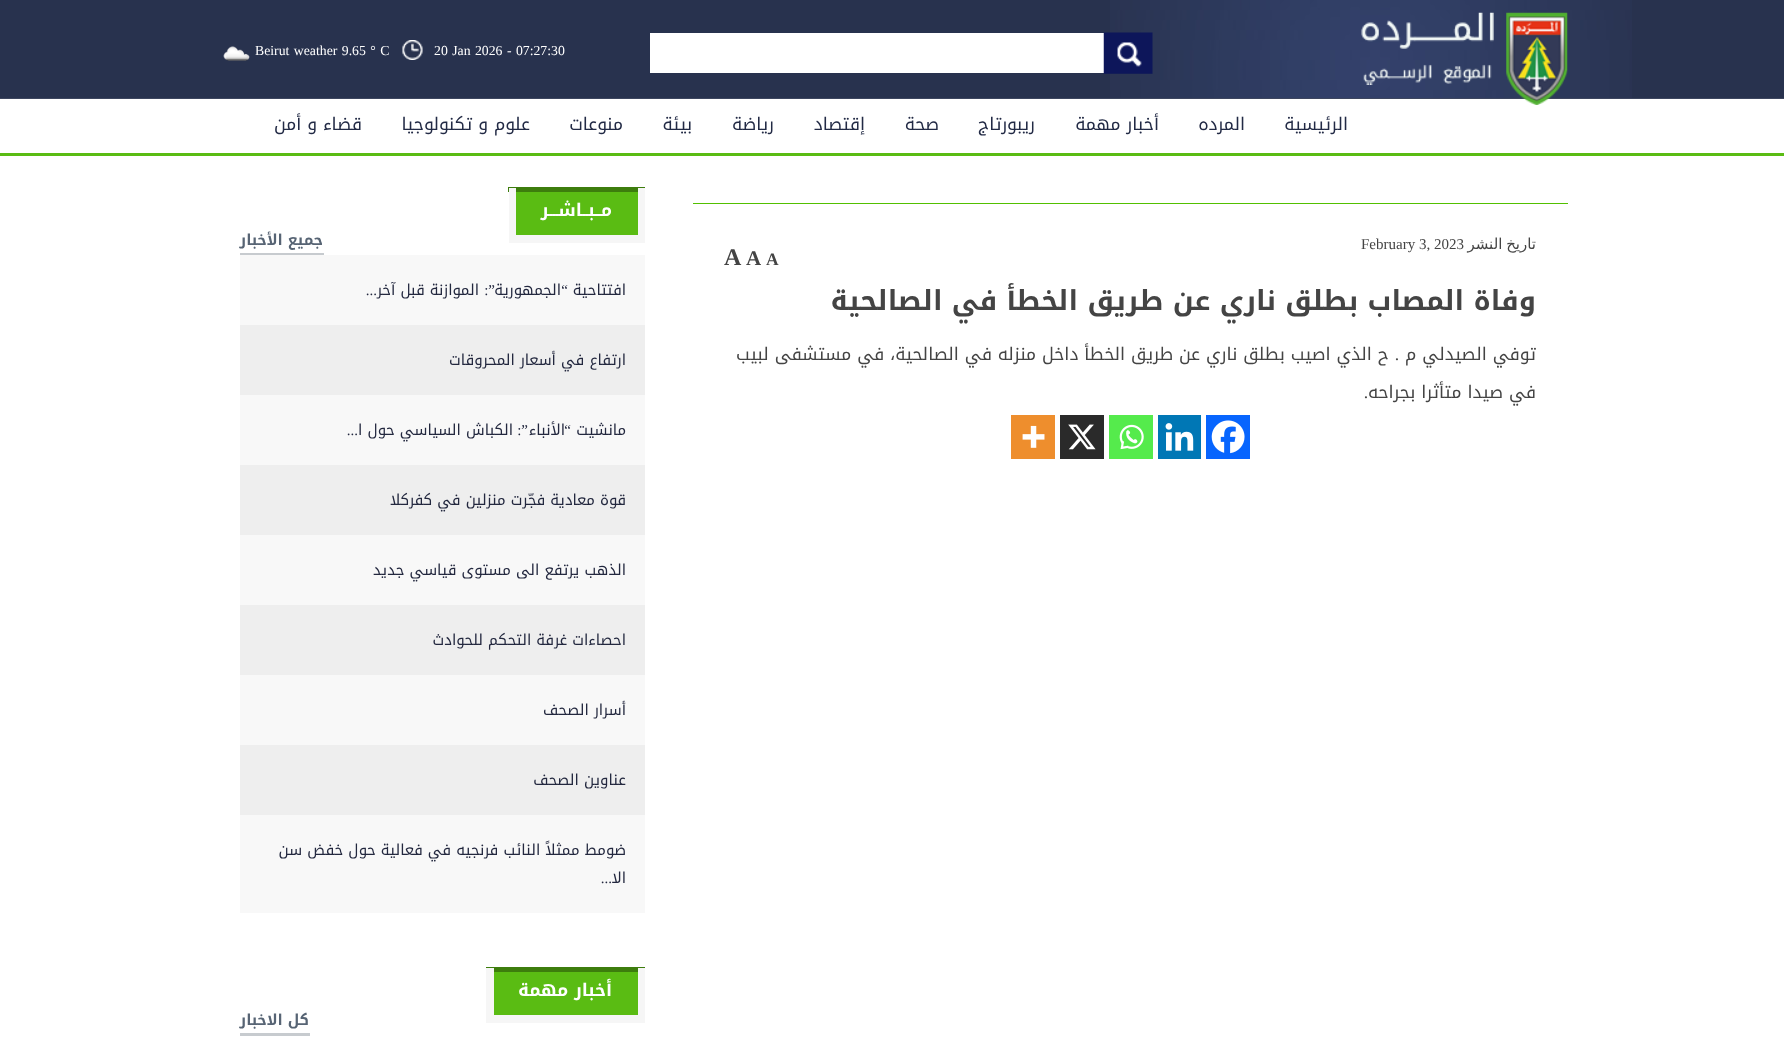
<svg xmlns="http://www.w3.org/2000/svg" width="1784" height="1040">
	<rect width="100%" height="100%" fill="#FFFFFF" />
	<rect x="0" y="0" width="1784" height="98" fill="#28324E" />
	<image x="1110" y="0" width="522" height="98" href="assets/img1.png" />
	<rect x="0" y="98" width="1784" height="1" fill="#3D465F" />
	<image x="1506" y="12" width="62" height="93" href="assets/img2.png" />
	<image x="1361" y="12" width="133" height="73" href="assets/img3.png" />
	<rect x="650" y="33" width="454" height="40" fill="#FFFFFF" />
	<image x="1103" y="32" width="50" height="42" href="assets/img4.png" />
	<image x="402" y="40" width="21" height="20" href="assets/img5.png" />
	<g font-family="Liberation Serif" font-size="13.75" fill="#FFFFFF">
		<text x="434" y="55" word-spacing="1">20 Jan 2026 - 07:27:30</text>
		<text x="255" y="55" word-spacing="1">Beirut weather 9.65 ° C</text>
	</g>
	<image x="223" y="46" width="27" height="15" href="assets/img6.png" />
	<rect x="0" y="153" width="1784" height="3" fill="#5ABC13" />
	<g font-family="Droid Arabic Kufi" font-size="17.5" direction="rtl" fill="#222A45">
		<text x="1348" y="130">الرئيسية</text>
		<text x="1245" y="130">المرده</text>
		<text x="1159" y="130">أخبار مهمة</text>
		<text x="1035" y="130">ريبورتاج</text>
		<text x="939" y="130">صحة</text>
		<text x="865" y="130">إقتصاد</text>
		<text x="774" y="130">رياضة</text>
		<text x="692" y="130">بيئة</text>
		<text x="623" y="130">منوعات</text>
		<text x="530" y="130">علوم و تكنولوجيا</text>
		<text x="362" y="130">قضاء و أمن</text>
	</g>
	<rect x="693" y="203" width="875" height="1" fill="#52C000" />
	<text x="1536" y="249" word-spacing="-1" font-family="DejaVu Sans" font-size="15" direction="rtl" fill="#444444">تاريخ النشر</text>
	<text x="1361" y="249" font-family="Liberation Serif" font-size="15" fill="#444444">February 3, 2023</text>
	<text x="766" y="265" font-family="Liberation Serif" font-size="17.5" font-weight="700" fill="#444444">A</text>
	<text x="746" y="265" font-family="Liberation Serif" font-size="21" font-weight="700" fill="#444444">A</text>
	<text x="724" y="265" font-family="Liberation Serif" font-size="24" font-weight="700" fill="#444444">A</text>
	<text x="1536" y="310" font-family="Droid Arabic Kufi" font-size="27.5" font-weight="700" direction="rtl" fill="#444444">وفاة المصاب بطلق ناري عن طريق الخطأ في الصالحية</text>
	<text x="1536" y="360" font-family="Droid Arabic Kufi" font-size="17.5" direction="rtl" fill="#444444">توفي الصيدلي م</text>
	<text x="1399" y="360" font-family="Liberation Serif" font-size="17.5" direction="rtl" fill="#444444">.</text>
	<g font-family="Droid Arabic Kufi" font-size="17.5" direction="rtl" fill="#444444">
		<text x="1389" y="360">ح الذي اصيب بطلق ناري عن طريق الخطأ داخل منزله في الصالحية، في مستشفى لبيب</text>
		<text x="1536" y="398">في صيدا متأثرا بجراحه</text>
	</g>
	<text x="1368" y="398" font-family="Liberation Serif" font-size="17.5" direction="rtl" fill="#444444">.</text>
	<rect x="1206" y="415" width="44" height="44" fill="#0765FE" />
	<image x="1211" y="420" width="34" height="34" href="assets/img7.png" />
	<rect x="1158" y="415" width="43" height="44" fill="#0077B5" />
	<image x="1165" y="423" width="29" height="28" href="assets/img8.png" />
	<rect x="1109" y="415" width="44" height="44" fill="#55EB4C" />
	<image x="1119" y="424" width="25" height="26" href="assets/img9.png" />
	<rect x="1060" y="415" width="44" height="44" fill="#2A2A2A" />
	<image x="1068" y="424" width="28" height="26" href="assets/img10.png" />
	<rect x="1011" y="415" width="44" height="44" fill="#EE8E2D" />
	<image x="1022" y="425" width="23" height="23" href="assets/img11.png" />
	<rect x="516" y="192" width="122" height="43" fill="#5ABC13" />
	<rect x="508" y="187" width="137" height="5" fill="#3D7D0D" />
	<rect x="638" y="188" width="7" height="55" fill="#F6F6F6" />
	<rect x="509" y="235" width="136" height="8" fill="#F6F6F6" />
	<rect x="509" y="188" width="7" height="55" fill="#F6F6F6" />
	<text x="612" y="216" font-family="Droid Arabic Kufi" font-size="17.5" font-weight="700" direction="rtl" fill="#FFFFFF">مــبــاشـــر</text>
	<rect x="240" y="253" width="84" height="2" fill="#C7CBCF" />
	<text x="323" y="245" font-family="Droid Arabic Kufi" font-size="15" font-weight="700" direction="rtl" fill="#576474">جميع الأخبار</text>
	<rect x="240" y="255" width="405" height="70" fill="#F8F8F8" />
	<text x="626" y="295" font-family="Droid Arabic Kufi" font-size="15" direction="rtl" fill="#23283F">افتتاحية</text>
	<text x="568" y="295" font-family="Liberation Serif" font-size="15" direction="rtl" fill="#23283F">“</text>
	<text x="561" y="295" font-family="Droid Arabic Kufi" font-size="15" direction="rtl" fill="#23283F">الجمهورية</text>
	<text x="495" y="295" font-family="Liberation Serif" font-size="15" direction="rtl" fill="#23283F">”:</text>
	<text x="479" y="295" font-family="Droid Arabic Kufi" font-size="15" direction="rtl" fill="#23283F">الموازنة قبل آخر</text>
	<text x="377" y="295" font-family="Liberation Serif" font-size="15" direction="rtl" fill="#23283F">...</text>
	<rect x="240" y="325" width="405" height="70" fill="#EEEEEE" />
	<text x="626" y="365" font-family="Droid Arabic Kufi" font-size="15" direction="rtl" fill="#23283F">ارتفاع في أسعار المحروقات</text>
	<rect x="240" y="395" width="405" height="70" fill="#F8F8F8" />
	<text x="626" y="435" font-family="Droid Arabic Kufi" font-size="15" direction="rtl" fill="#23283F">مانشيت</text>
	<text x="571" y="435" font-family="Liberation Serif" font-size="15" direction="rtl" fill="#23283F">“</text>
	<text x="565" y="435" font-family="Droid Arabic Kufi" font-size="15" direction="rtl" fill="#23283F">الأنباء</text>
	<text x="528" y="435" font-family="Liberation Serif" font-size="15" direction="rtl" fill="#23283F">”:</text>
	<text x="513" y="435" font-family="Droid Arabic Kufi" font-size="15" direction="rtl" fill="#23283F">الكباش السياسي حول ا</text>
	<text x="358" y="435" font-family="Liberation Serif" font-size="15" direction="rtl" fill="#23283F">...</text>
	<rect x="240" y="465" width="405" height="70" fill="#EEEEEE" />
	<text x="626" y="505" font-family="Droid Arabic Kufi" font-size="15" direction="rtl" fill="#23283F">قوة معادية فجّرت منزلين في كفركلا</text>
	<rect x="240" y="535" width="405" height="70" fill="#F8F8F8" />
	<text x="626" y="575" font-family="Droid Arabic Kufi" font-size="15" direction="rtl" fill="#23283F">الذهب يرتفع الى مستوى قياسي جديد</text>
	<rect x="240" y="605" width="405" height="70" fill="#EEEEEE" />
	<text x="626" y="645" font-family="Droid Arabic Kufi" font-size="15" direction="rtl" fill="#23283F">احصاءات غرفة التحكم للحوادث</text>
	<rect x="240" y="675" width="405" height="70" fill="#F8F8F8" />
	<text x="626" y="715" font-family="Droid Arabic Kufi" font-size="15" direction="rtl" fill="#23283F">أسرار الصحف</text>
	<rect x="240" y="745" width="405" height="70" fill="#EEEEEE" />
	<text x="626" y="785" font-family="Droid Arabic Kufi" font-size="15" direction="rtl" fill="#23283F">عناوين الصحف</text>
	<rect x="240" y="815" width="405" height="98" fill="#F8F8F8" />
	<g font-family="Droid Arabic Kufi" font-size="15" direction="rtl" fill="#23283F">
		<text x="626" y="855">ضومط ممثلاً النائب فرنجيه في فعالية حول خفض سن</text>
		<text x="626" y="883">الا</text>
	</g>
	<text x="612" y="883" font-family="Liberation Serif" font-size="15" direction="rtl" fill="#23283F">...</text>
	<rect x="494" y="972" width="144" height="43" fill="#5ABC13" />
	<rect x="486" y="967" width="159" height="5" fill="#3D7D0D" />
	<rect x="638" y="968" width="7" height="55" fill="#F6F6F6" />
	<rect x="486" y="1015" width="159" height="8" fill="#F6F6F6" />
	<rect x="486" y="968" width="8" height="55" fill="#F6F6F6" />
	<text x="612" y="996" font-family="Droid Arabic Kufi" font-size="17.5" font-weight="700" direction="rtl" fill="#FFFFFF">أخبار مهمة</text>
	<rect x="240" y="1033" width="70" height="3" fill="#C7CBCF" />
	<text x="309" y="1025" font-family="Droid Arabic Kufi" font-size="15" font-weight="700" direction="rtl" fill="#576474">كل الاخبار</text>
</svg>
